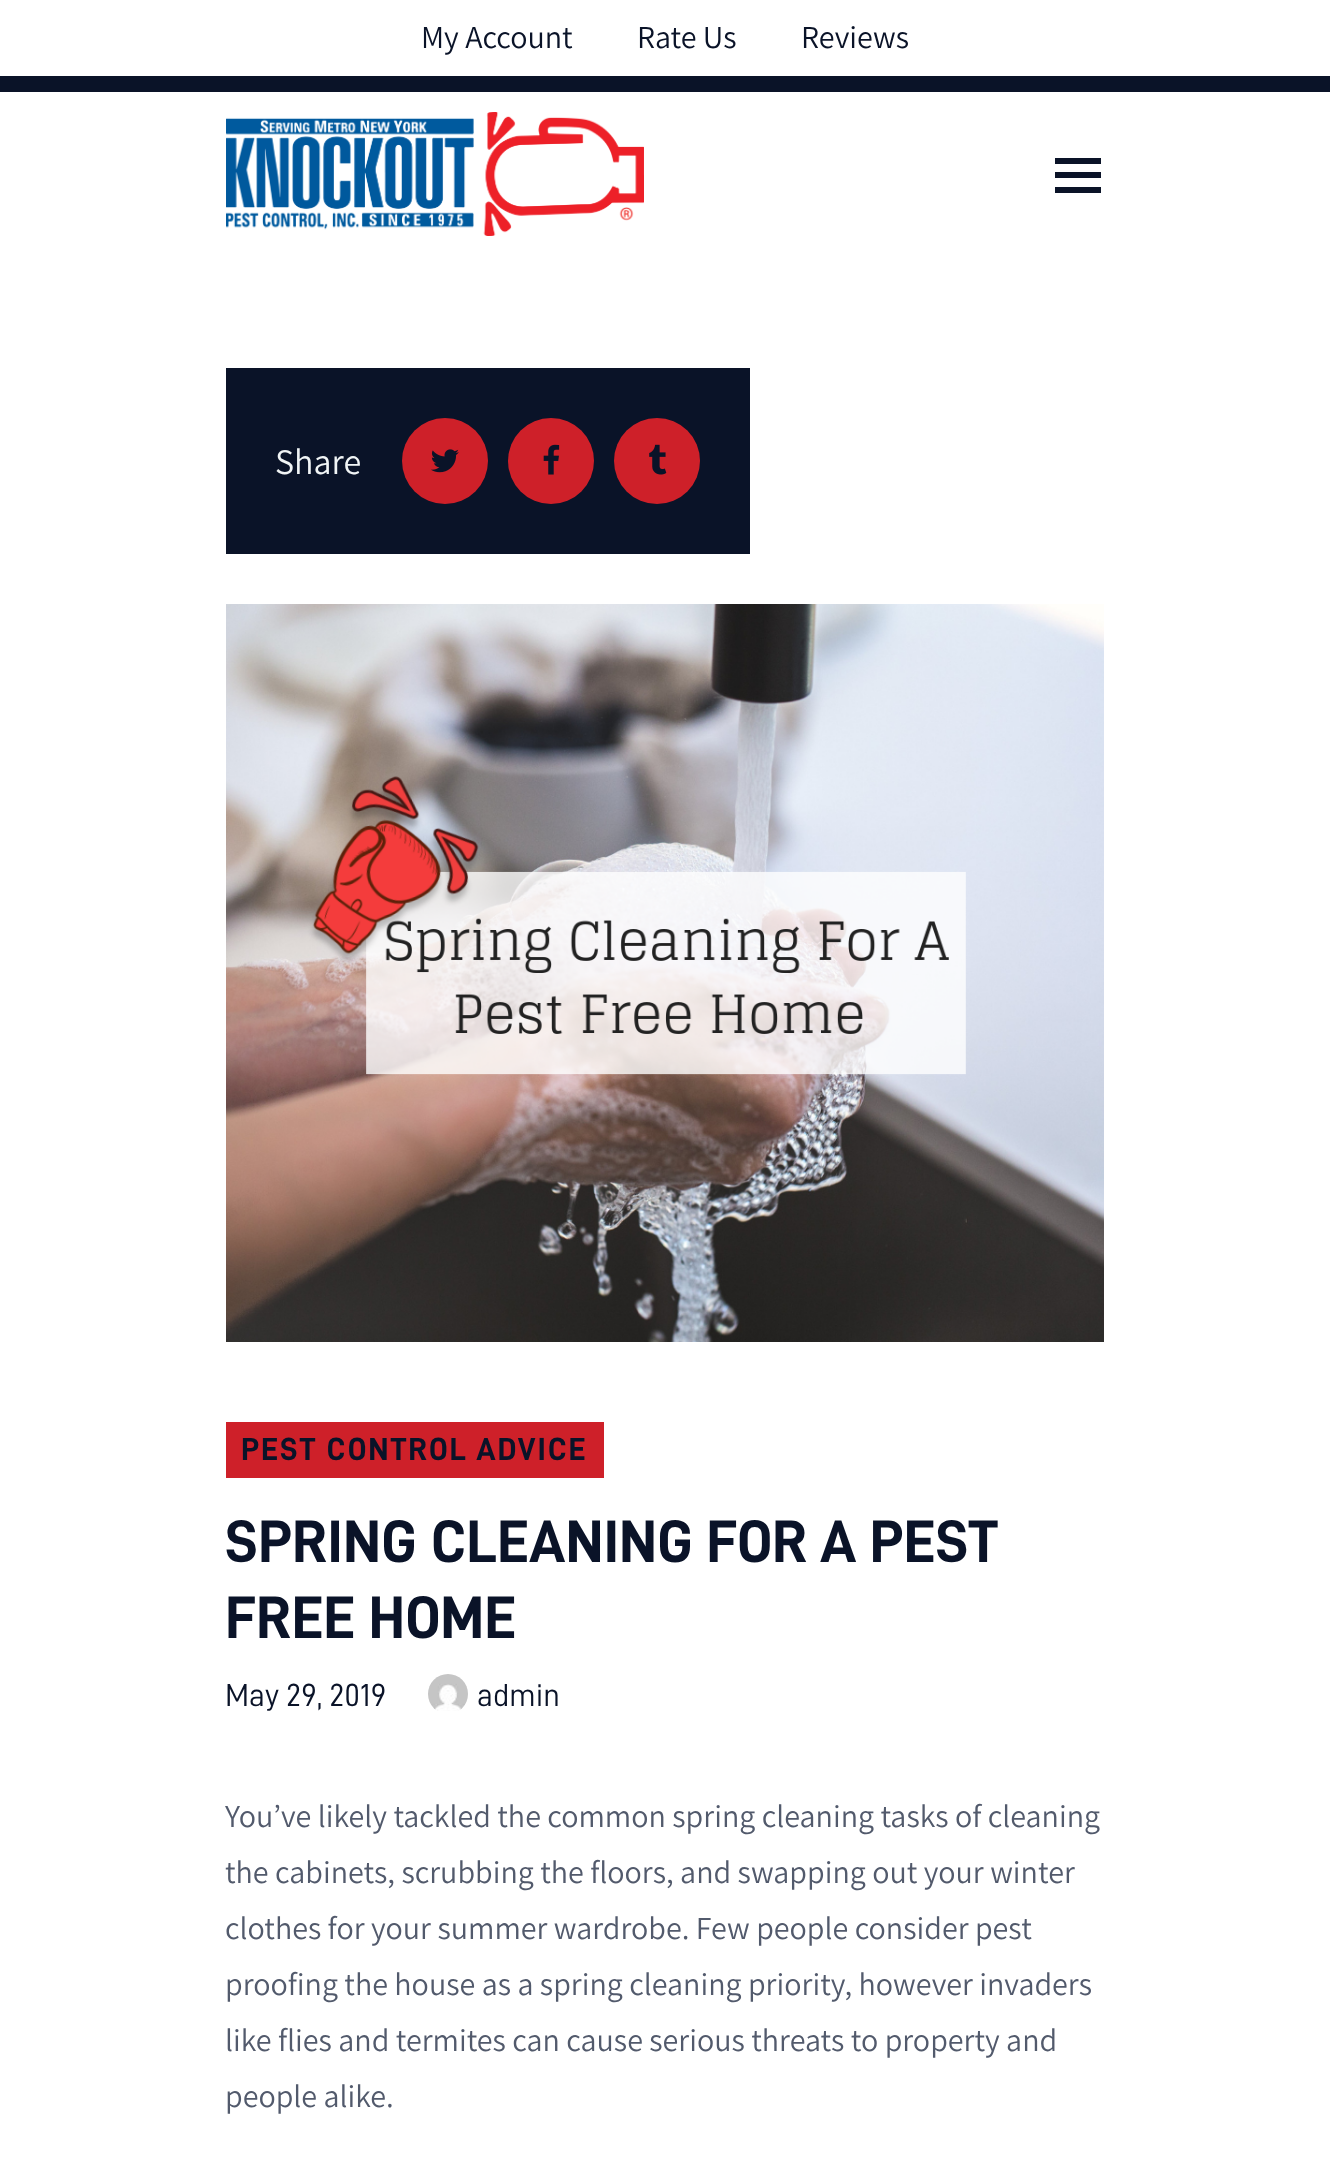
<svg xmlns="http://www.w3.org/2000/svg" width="1330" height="2157">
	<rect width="100%" height="100%" fill="#FFFFFF" />
	<g font-family="Assistant" font-size="32" font-weight="200" fill="#0A1328">
		<text x="421" y="48">My Account</text>
		<text x="637" y="48">Rate Us</text>
		<text x="801" y="48">Reviews</text>
	</g>
	<rect x="0" y="76" width="1330" height="16" fill="#0A1328" />
	<image x="226" y="112" width="418" height="124" href="assets/img1.png" />
	<path d="M1055 193H1101V187H1055ZM1055 178H1101V172H1055ZM1055 158V164H1101V158Z" fill="#0A1328" />
	<rect x="226" y="368" width="524" height="186" fill="#0A1328" />
	<text x="275" y="474" font-family="Assistant" font-size="36" font-weight="200" fill="#F1F5F6">Share</text>
	<circle cx="445" cy="461" r="43" fill="#CE2029" />
	<image x="431" y="449" width="28" height="24" href="assets/img2.png" />
	<circle cx="551" cy="461" r="43" fill="#CE2029" />
	<image x="543" y="444" width="17" height="31" href="assets/img3.png" />
	<circle cx="657" cy="461" r="43" fill="#CE2029" />
	<image x="649" y="444" width="18" height="31" href="assets/img4.png" />
	<image x="226" y="604" width="878" height="738" href="assets/img5.png" />
	<rect x="226" y="1422" width="378" height="56" fill="#CE2029" />
	<text x="241" y="1460" font-family="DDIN" font-size="32" font-weight="700" letter-spacing="1.9" fill="#0A1328">PEST CONTROL ADVICE</text>
	<g font-family="DDIN" font-size="60" font-weight="700" fill="#0A1328">
		<text x="225" y="1562">SPRING CLEANING FOR A PEST</text>
		<text x="225" y="1638">FREE HOME</text>
	</g>
	<text x="225" y="1706" font-family="DDIN" font-size="32" fill="#0A1328">May 29, 2019</text>
	<image x="428" y="1674" width="40" height="37" href="assets/img6.png" />
	<text x="477" y="1706" font-family="DDIN" font-size="32" fill="#0A1328">admin</text>
	<g font-family="Assistant" font-size="32" font-weight="200" fill="#525A6C">
		<text x="225" y="1827">You’ve likely tackled the common spring cleaning tasks of cleaning</text>
		<text x="225" y="1883">the cabinets, scrubbing the floors, and swapping out your winter</text>
		<text x="225" y="1939">clothes for your summer wardrobe. Few people consider pest</text>
		<text x="225" y="1995">proofing the house as a spring cleaning priority, however invaders</text>
		<text x="225" y="2051">like flies and termites can cause serious threats to property and</text>
		<text x="225" y="2107">people alike.</text>
	</g>
</svg>
